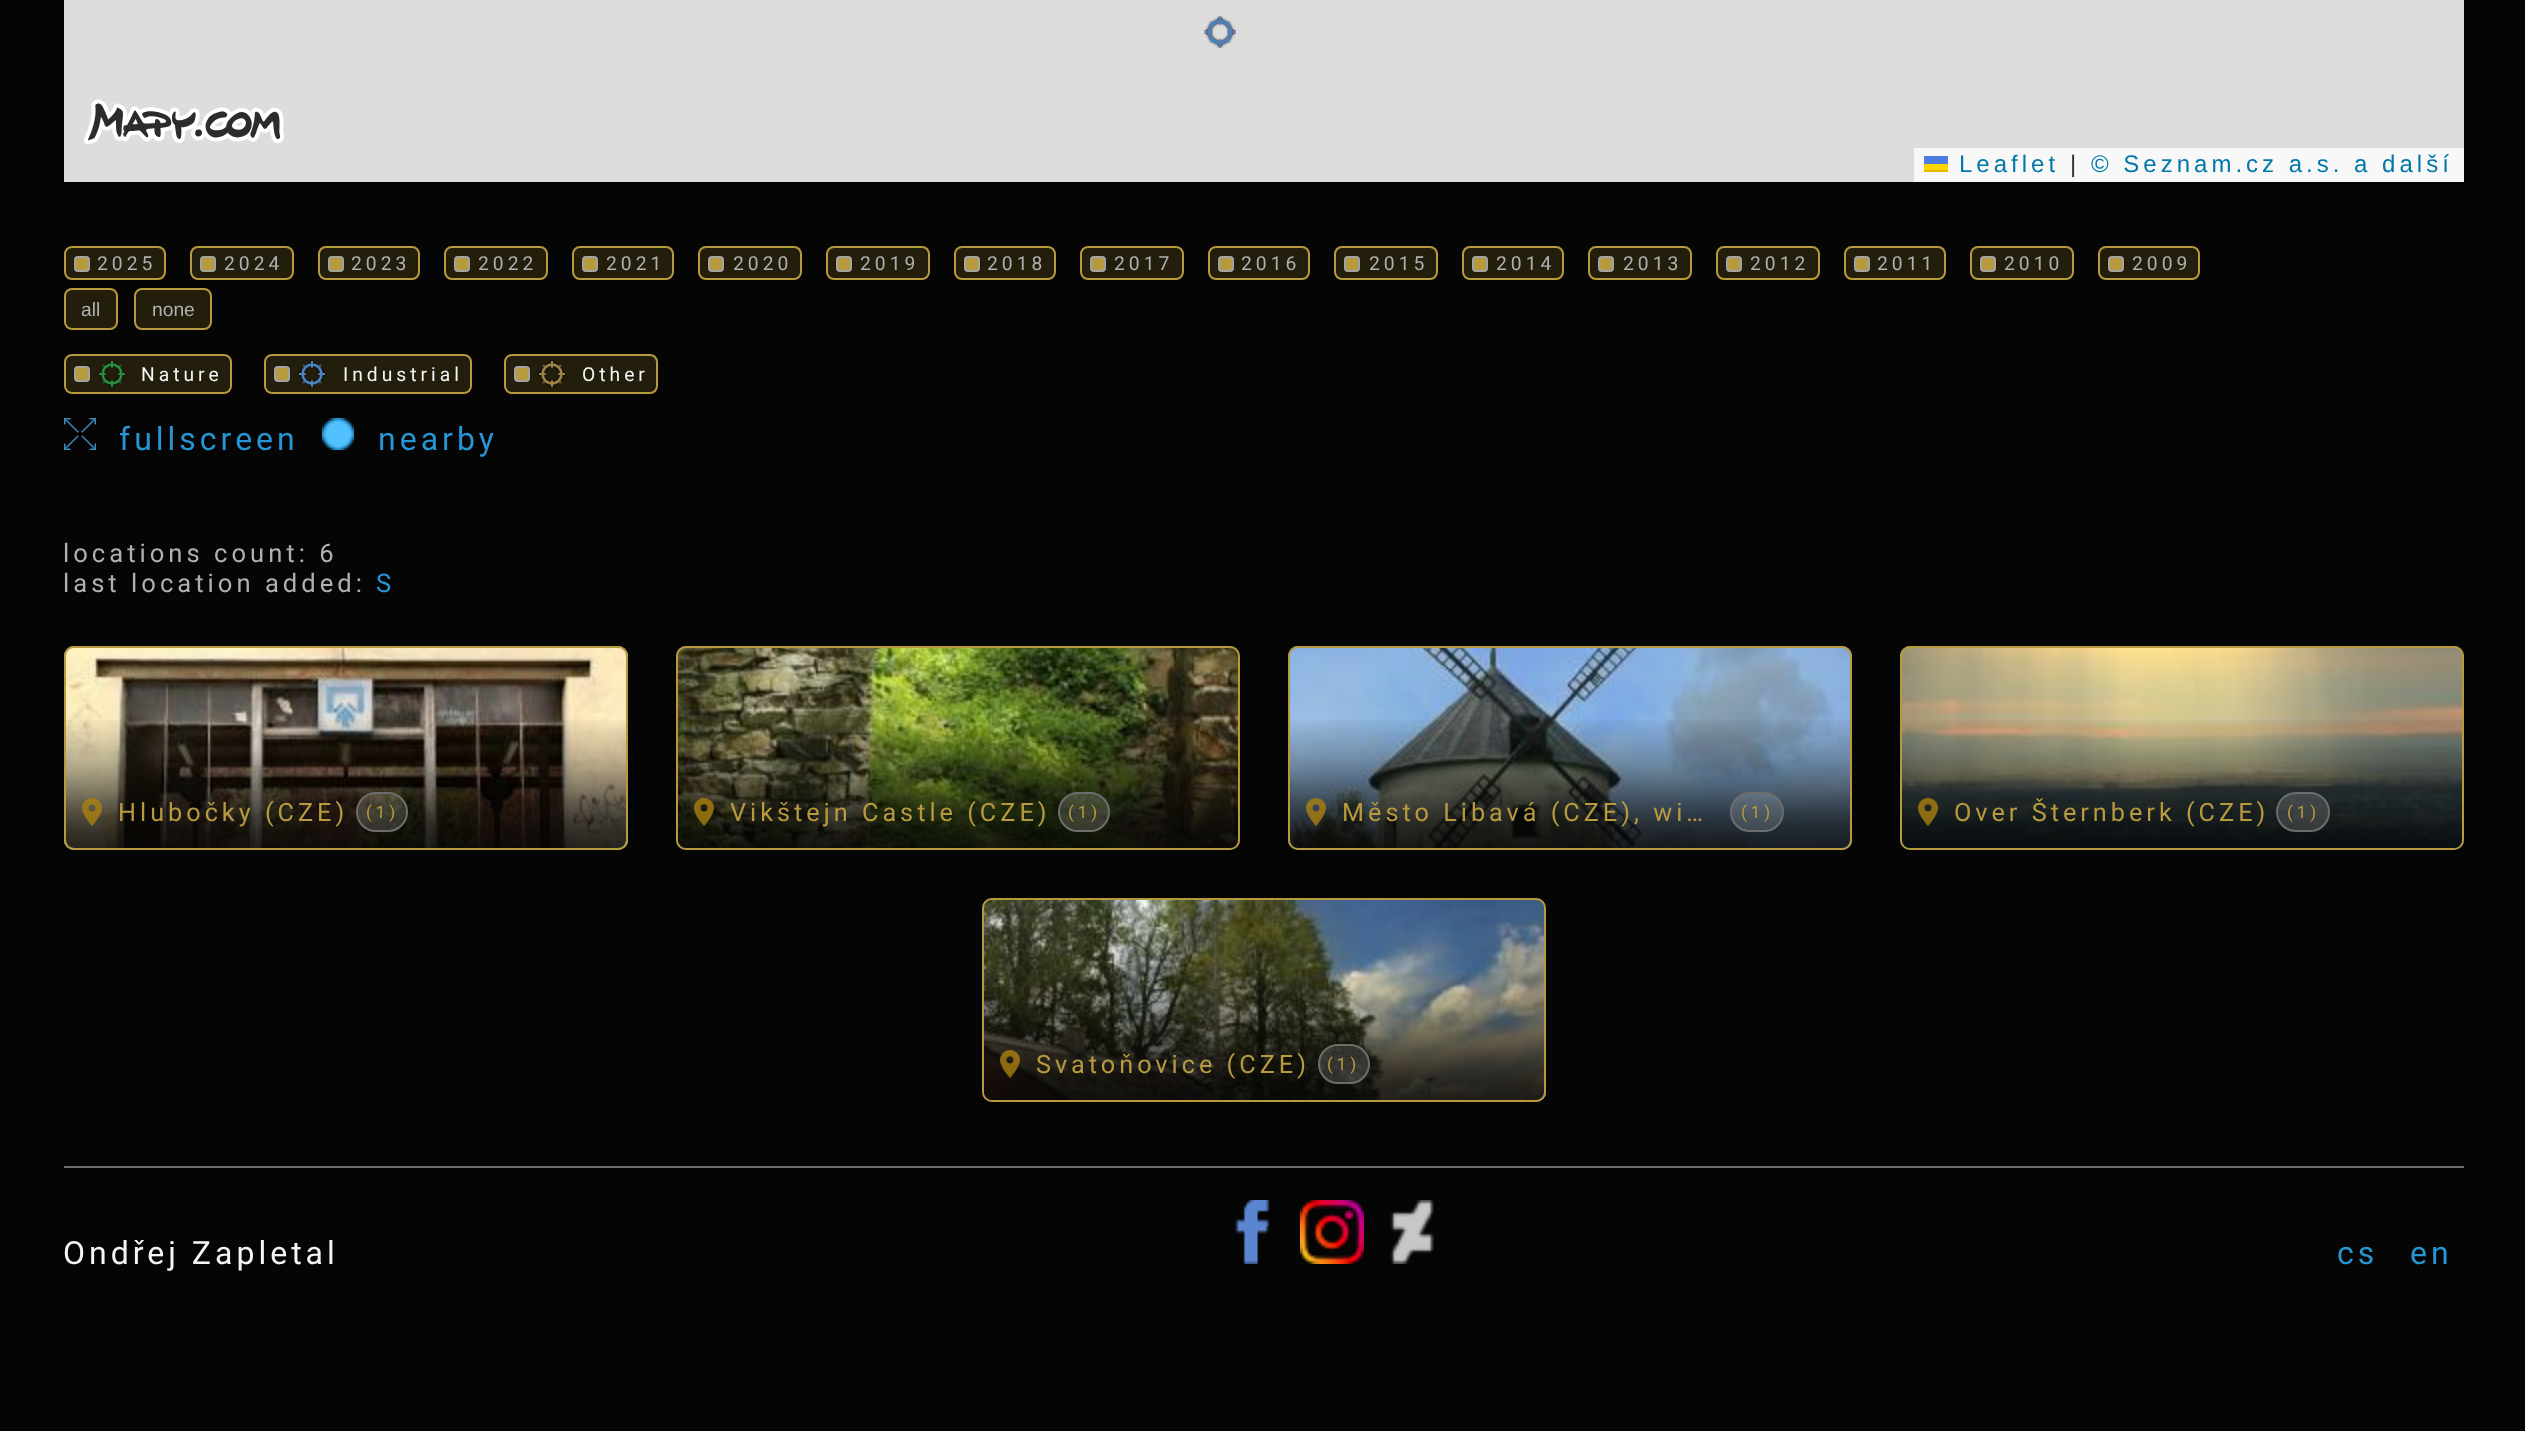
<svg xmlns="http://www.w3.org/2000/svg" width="2525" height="1431">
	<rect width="100%" height="100%" fill="#050505" />
	<rect x="64" y="0" width="2400" height="182" fill="#DDDDDD" />
	<image x="1204" y="16" width="32" height="32" href="assets/img1.png" />
	<image x="84" y="99" width="200" height="46" href="assets/img2.png" />
	<rect x="1914" y="148" width="550" height="34" fill="#F8F8F8" />
	<text x="1959" y="172" font-family="Liberation Sans" font-size="24" letter-spacing="4" fill="#0078A8">Leaflet</text>
	<rect x="1924" y="156" width="24" height="8" fill="#4C7BE1" />
	<rect x="1924" y="164" width="24" height="6" fill="#FFD500" />
	<rect x="1924" y="170" width="24" height="2" fill="#E0BC00" />
	<text x="2070" y="172" font-family="Liberation Sans" font-size="24" letter-spacing="4" fill="#333333">|</text>
	<text x="2091" y="172" font-family="Liberation Sans" font-size="24" letter-spacing="4" fill="#0078A8">© Seznam.cz a.s. a další</text>
	<rect x="65" y="247" width="100" height="32" rx="7" fill="#231D0B" stroke="#B79A3E" stroke-width="2" />
	<rect x="75" y="257" width="14" height="14" rx="3" fill="#B79A3E" stroke="#A3A3A3" stroke-width="2" />
	<text x="97" y="270" font-family="Roboto" font-size="19.25" letter-spacing="4" fill="#B0B0B0">2025</text>
	<rect x="191" y="247" width="102" height="32" rx="7" fill="#231D0B" stroke="#B79A3E" stroke-width="2" />
	<rect x="201" y="257" width="14" height="14" rx="3" fill="#B79A3E" stroke="#A3A3A3" stroke-width="2" />
	<text x="224" y="270" font-family="Roboto" font-size="19.25" letter-spacing="4" fill="#B0B0B0">2024</text>
	<rect x="319" y="247" width="100" height="32" rx="7" fill="#231D0B" stroke="#B79A3E" stroke-width="2" />
	<rect x="329" y="257" width="14" height="14" rx="3" fill="#B79A3E" stroke="#A3A3A3" stroke-width="2" />
	<text x="351" y="270" font-family="Roboto" font-size="19.25" letter-spacing="4" fill="#B0B0B0">2023</text>
	<rect x="445" y="247" width="102" height="32" rx="7" fill="#231D0B" stroke="#B79A3E" stroke-width="2" />
	<rect x="455" y="257" width="14" height="14" rx="3" fill="#B79A3E" stroke="#A3A3A3" stroke-width="2" />
	<text x="478" y="270" font-family="Roboto" font-size="19.25" letter-spacing="4" fill="#B0B0B0">2022</text>
	<rect x="573" y="247" width="100" height="32" rx="7" fill="#231D0B" stroke="#B79A3E" stroke-width="2" />
	<rect x="583" y="257" width="14" height="14" rx="3" fill="#B79A3E" stroke="#A3A3A3" stroke-width="2" />
	<text x="606" y="270" font-family="Roboto" font-size="19.25" letter-spacing="4" fill="#B0B0B0">2021</text>
	<rect x="699" y="247" width="102" height="32" rx="7" fill="#231D0B" stroke="#B79A3E" stroke-width="2" />
	<rect x="709" y="257" width="14" height="14" rx="3" fill="#B79A3E" stroke="#A3A3A3" stroke-width="2" />
	<text x="733" y="270" font-family="Roboto" font-size="19.25" letter-spacing="4" fill="#B0B0B0">2020</text>
	<rect x="827" y="247" width="102" height="32" rx="7" fill="#231D0B" stroke="#B79A3E" stroke-width="2" />
	<rect x="837" y="257" width="14" height="14" rx="3" fill="#B79A3E" stroke="#A3A3A3" stroke-width="2" />
	<text x="860" y="270" font-family="Roboto" font-size="19.25" letter-spacing="4" fill="#B0B0B0">2019</text>
	<rect x="955" y="247" width="100" height="32" rx="7" fill="#231D0B" stroke="#B79A3E" stroke-width="2" />
	<rect x="965" y="257" width="14" height="14" rx="3" fill="#B79A3E" stroke="#A3A3A3" stroke-width="2" />
	<text x="987" y="270" font-family="Roboto" font-size="19.25" letter-spacing="4" fill="#B0B0B0">2018</text>
	<rect x="1081" y="247" width="102" height="32" rx="7" fill="#231D0B" stroke="#B79A3E" stroke-width="2" />
	<rect x="1091" y="257" width="14" height="14" rx="3" fill="#B79A3E" stroke="#A3A3A3" stroke-width="2" />
	<text x="1114" y="270" font-family="Roboto" font-size="19.25" letter-spacing="4" fill="#B0B0B0">2017</text>
	<rect x="1209" y="247" width="100" height="32" rx="7" fill="#231D0B" stroke="#B79A3E" stroke-width="2" />
	<rect x="1219" y="257" width="14" height="14" rx="3" fill="#B79A3E" stroke="#A3A3A3" stroke-width="2" />
	<text x="1241" y="270" font-family="Roboto" font-size="19.25" letter-spacing="4" fill="#B0B0B0">2016</text>
	<rect x="1335" y="247" width="102" height="32" rx="7" fill="#231D0B" stroke="#B79A3E" stroke-width="2" />
	<rect x="1345" y="257" width="14" height="14" rx="3" fill="#B79A3E" stroke="#A3A3A3" stroke-width="2" />
	<text x="1369" y="270" font-family="Roboto" font-size="19.25" letter-spacing="4" fill="#B0B0B0">2015</text>
	<rect x="1463" y="247" width="100" height="32" rx="7" fill="#231D0B" stroke="#B79A3E" stroke-width="2" />
	<rect x="1473" y="257" width="14" height="14" rx="3" fill="#B79A3E" stroke="#A3A3A3" stroke-width="2" />
	<text x="1496" y="270" font-family="Roboto" font-size="19.25" letter-spacing="4" fill="#B0B0B0">2014</text>
	<rect x="1589" y="247" width="102" height="32" rx="7" fill="#231D0B" stroke="#B79A3E" stroke-width="2" />
	<rect x="1599" y="257" width="14" height="14" rx="3" fill="#B79A3E" stroke="#A3A3A3" stroke-width="2" />
	<text x="1623" y="270" font-family="Roboto" font-size="19.25" letter-spacing="4" fill="#B0B0B0">2013</text>
	<rect x="1717" y="247" width="102" height="32" rx="7" fill="#231D0B" stroke="#B79A3E" stroke-width="2" />
	<rect x="1727" y="257" width="14" height="14" rx="3" fill="#B79A3E" stroke="#A3A3A3" stroke-width="2" />
	<text x="1750" y="270" font-family="Roboto" font-size="19.25" letter-spacing="4" fill="#B0B0B0">2012</text>
	<rect x="1845" y="247" width="100" height="32" rx="7" fill="#231D0B" stroke="#B79A3E" stroke-width="2" />
	<rect x="1855" y="257" width="14" height="14" rx="3" fill="#B79A3E" stroke="#A3A3A3" stroke-width="2" />
	<text x="1877" y="270" font-family="Roboto" font-size="19.25" letter-spacing="4" fill="#B0B0B0">2011</text>
	<rect x="1971" y="247" width="102" height="32" rx="7" fill="#231D0B" stroke="#B79A3E" stroke-width="2" />
	<rect x="1981" y="257" width="14" height="14" rx="3" fill="#B79A3E" stroke="#A3A3A3" stroke-width="2" />
	<text x="2004" y="270" font-family="Roboto" font-size="19.25" letter-spacing="4" fill="#B0B0B0">2010</text>
	<rect x="2099" y="247" width="100" height="32" rx="7" fill="#231D0B" stroke="#B79A3E" stroke-width="2" />
	<rect x="2109" y="257" width="14" height="14" rx="3" fill="#B79A3E" stroke="#A3A3A3" stroke-width="2" />
	<text x="2132" y="270" font-family="Roboto" font-size="19.25" letter-spacing="4" fill="#B0B0B0">2009</text>
	<rect x="65" y="289" width="52" height="40" rx="7" fill="#231D0B" stroke="#B79A3E" stroke-width="2" />
	<text x="81" y="316" font-family="Liberation Sans" font-size="19.25" fill="#B0B0B0">all</text>
	<rect x="135" y="289" width="76" height="40" rx="7" fill="#231D0B" stroke="#B79A3E" stroke-width="2" />
	<text x="152" y="316" font-family="Liberation Sans" font-size="19.25" fill="#B0B0B0">none</text>
	<rect x="65" y="355" width="166" height="38" rx="7" fill="#231D0B" stroke="#B79A3E" stroke-width="2" />
	<rect x="75" y="367" width="14" height="14" rx="3" fill="#B79A3E" stroke="#A3A3A3" stroke-width="2" />
	<image x="98" y="360" width="28" height="28" href="assets/img3.png" />
	<text x="141" y="381" font-family="Roboto" font-size="19.25" letter-spacing="4" fill="#F5F5F5">Nature</text>
	<rect x="265" y="355" width="206" height="38" rx="7" fill="#231D0B" stroke="#B79A3E" stroke-width="2" />
	<rect x="275" y="367" width="14" height="14" rx="3" fill="#B79A3E" stroke="#A3A3A3" stroke-width="2" />
	<image x="298" y="360" width="28" height="28" href="assets/img4.png" />
	<text x="343" y="381" font-family="Roboto" font-size="19.25" letter-spacing="4" fill="#F5F5F5">Industrial</text>
	<rect x="505" y="355" width="152" height="38" rx="7" fill="#231D0B" stroke="#B79A3E" stroke-width="2" />
	<rect x="515" y="367" width="14" height="14" rx="3" fill="#B79A3E" stroke="#A3A3A3" stroke-width="2" />
	<image x="538" y="360" width="28" height="28" href="assets/img5.png" />
	<text x="582" y="381" font-family="Roboto" font-size="19.25" letter-spacing="4" fill="#F5F5F5">Other</text>
	<image x="64" y="418" width="32" height="32" href="assets/img6.png" />
	<text x="119" y="450" font-family="Roboto" font-size="32" letter-spacing="4" fill="#2795D3">fullscreen</text>
	<image x="322" y="418" width="32" height="32" href="assets/img7.png" />
	<text x="378" y="450" font-family="Roboto" font-size="32" letter-spacing="4" fill="#2795D3">nearby</text>
	<g font-family="Roboto" font-size="25.6" letter-spacing="4" fill="#B0B0B0">
		<text x="63" y="562">locations count: 6</text>
		<text x="63" y="592">last location added:</text>
	</g>
	<text x="376" y="592" font-family="Roboto" font-size="25.6" letter-spacing="4" fill="#2795D3">S</text>
	<image x="64" y="646" width="564" height="204" href="assets/img8.png" />
	<rect x="65" y="647" width="562" height="202" rx="9" fill="none" stroke="#B79A3E" stroke-width="2" />
	<image x="66" y="720" width="560" height="128" href="assets/img9.png" />
	<image x="82" y="798" width="20" height="28" href="assets/img10.png" />
	<text x="118" y="821" font-family="Roboto" font-size="25.25" letter-spacing="4" fill="#B79A3E">Hlubočky (CZE)</text>
	<rect x="357" y="793" width="50" height="38" rx="19" fill="#FFFFFF" fill-opacity="0.15" stroke="#6D6D6D" stroke-width="2" />
	<text x="366" y="818" font-family="Roboto" font-size="17" letter-spacing="4" fill="#B79A3E">(1)</text>
	<image x="676" y="646" width="564" height="204" href="assets/img11.png" />
	<rect x="677" y="647" width="562" height="202" rx="9" fill="none" stroke="#B79A3E" stroke-width="2" />
	<image x="678" y="720" width="560" height="128" href="assets/img12.png" />
	<image x="694" y="798" width="20" height="28" href="assets/img13.png" />
	<text x="730" y="821" font-family="Roboto" font-size="25.25" letter-spacing="4" fill="#B79A3E">Vikštejn Castle (CZE)</text>
	<rect x="1059" y="793" width="50" height="38" rx="19" fill="#FFFFFF" fill-opacity="0.15" stroke="#6D6D6D" stroke-width="2" />
	<text x="1068" y="818" font-family="Roboto" font-size="17" letter-spacing="4" fill="#B79A3E">(1)</text>
	<image x="1288" y="646" width="564" height="204" href="assets/img14.png" />
	<rect x="1289" y="647" width="562" height="202" rx="9" fill="none" stroke="#B79A3E" stroke-width="2" />
	<image x="1290" y="720" width="560" height="128" href="assets/img15.png" />
	<image x="1306" y="798" width="20" height="28" href="assets/img16.png" />
	<text x="1342" y="821" font-family="Roboto" font-size="25.25" letter-spacing="4" fill="#B79A3E">Město Libavá (CZE), wi…</text>
	<rect x="1731" y="793" width="52" height="38" rx="19" fill="#FFFFFF" fill-opacity="0.15" stroke="#6D6D6D" stroke-width="2" />
	<text x="1741" y="818" font-family="Roboto" font-size="17" letter-spacing="4" fill="#B79A3E">(1)</text>
	<image x="1900" y="646" width="564" height="204" href="assets/img17.png" />
	<rect x="1901" y="647" width="562" height="202" rx="9" fill="none" stroke="#B79A3E" stroke-width="2" />
	<image x="1902" y="720" width="560" height="128" href="assets/img18.png" />
	<image x="1918" y="798" width="20" height="28" href="assets/img19.png" />
	<text x="1954" y="821" font-family="Roboto" font-size="25.25" letter-spacing="4" fill="#B79A3E">Over Šternberk (CZE)</text>
	<rect x="2277" y="793" width="52" height="38" rx="19" fill="#FFFFFF" fill-opacity="0.15" stroke="#6D6D6D" stroke-width="2" />
	<text x="2287" y="818" font-family="Roboto" font-size="17" letter-spacing="4" fill="#B79A3E">(1)</text>
	<image x="982" y="898" width="564" height="204" href="assets/img20.png" />
	<rect x="983" y="899" width="562" height="202" rx="9" fill="none" stroke="#B79A3E" stroke-width="2" />
	<image x="984" y="972" width="560" height="128" href="assets/img21.png" />
	<image x="1000" y="1050" width="20" height="28" href="assets/img22.png" />
	<text x="1036" y="1073" font-family="Roboto" font-size="25.25" letter-spacing="4" fill="#B79A3E">Svatoňovice (CZE)</text>
	<rect x="1319" y="1045" width="50" height="38" rx="19" fill="#FFFFFF" fill-opacity="0.15" stroke="#6D6D6D" stroke-width="2" />
	<text x="1327" y="1070" font-family="Roboto" font-size="17" letter-spacing="4" fill="#B79A3E">(1)</text>
	<rect x="64" y="1166" width="2400" height="2" fill="#6D6D6D" />
	<text x="63" y="1264" font-family="Roboto" font-size="32" letter-spacing="4" fill="#F5F5F5">Ondřej Zapletal</text>
	<image x="1235" y="1200" width="35" height="64" href="assets/img23.png" />
	<image x="1300" y="1200" width="64" height="64" href="assets/img24.png" />
	<image x="1390" y="1200" width="44" height="64" href="assets/img25.png" />
	<g font-family="Roboto" font-size="32" letter-spacing="4" fill="#2795D3">
		<text x="2337" y="1264">cs</text>
		<text x="2410" y="1264">en</text>
	</g>
</svg>
